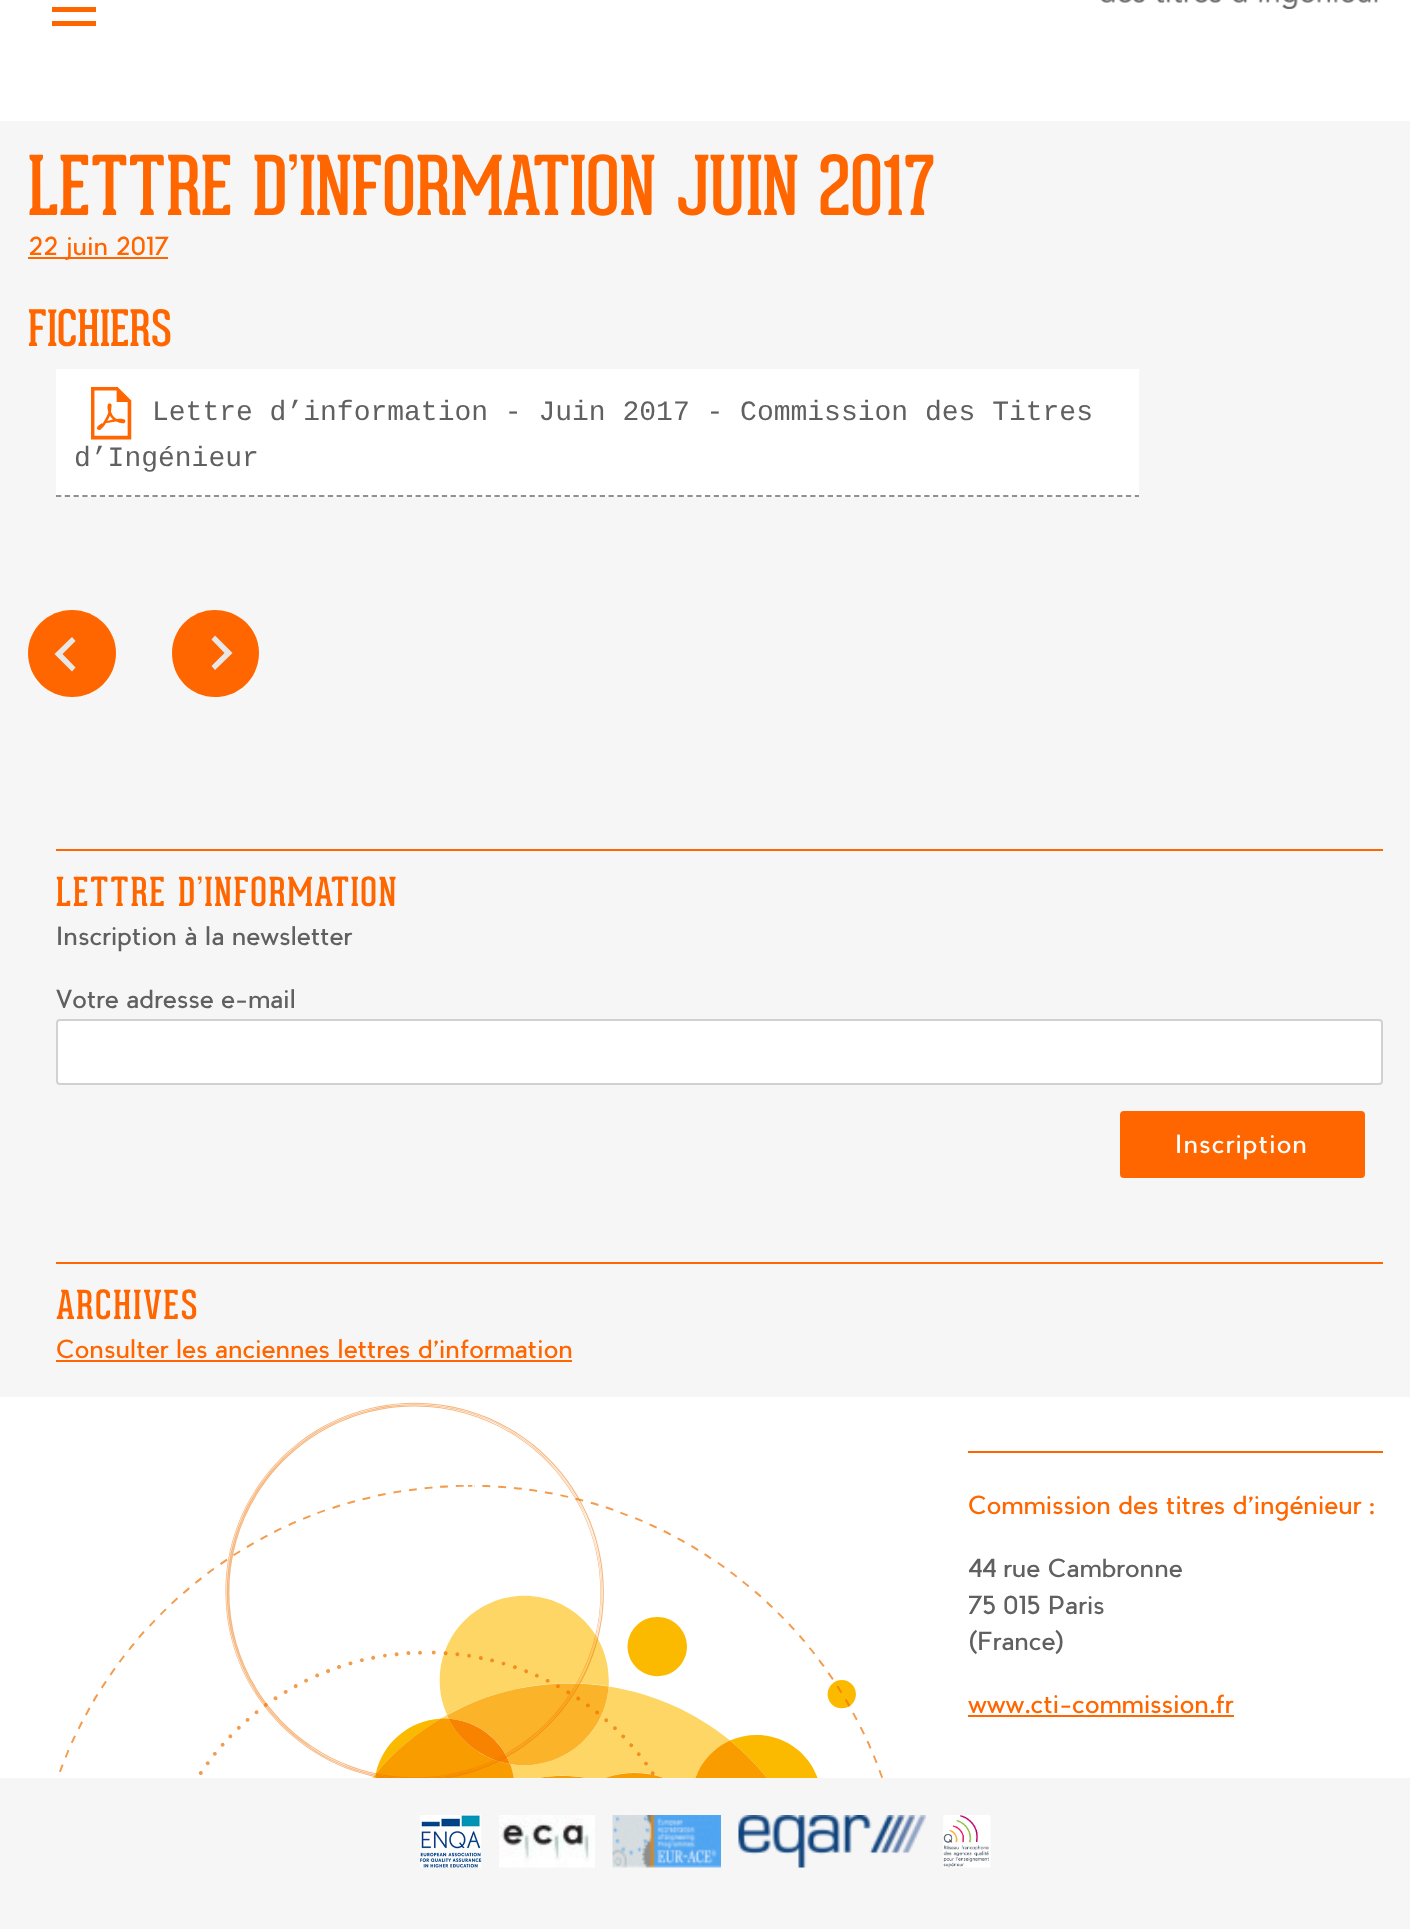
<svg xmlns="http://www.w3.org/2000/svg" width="1410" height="1929">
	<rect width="100%" height="100%" fill="#FFFFFF" />
	<image x="1101" y="0" width="277" height="9" href="assets/img1.png" />
	<path d="M52 26V21H96V26ZM52-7H96V-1H52ZM52 12V7H96V12Z" fill="#FF6600" />
	<rect x="0" y="121" width="1410" height="1276" fill="#F6F6F6" />
	<text x="28" y="215" font-family="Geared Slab" font-size="80.5" fill="#FF6600">LETTRE D’INFORMATION JUIN 2017</text>
	<rect x="28" y="257" width="140" height="2" fill="#FF6600" />
	<text x="28" y="255" font-family="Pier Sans" font-size="24.5" fill="#FF6600">22 juin 2017</text>
	<text x="28" y="346" font-family="Geared Slab" font-size="49" fill="#FF6600">FICHIERS</text>
	<rect x="56" y="369" width="1083" height="128" fill="#FFFFFF" />
	<path d="M56 496H1139" fill="none" stroke="#909090" stroke-width="1.8" stroke-dasharray="5.25 3.52" />
	<image x="91" y="387" width="41" height="53" href="assets/img2.png" />
	<g font-family="Liberation Mono" font-size="28" fill="#606060">
		<text x="152" y="420">Lettre d’information - Juin 2017 - Commission des Titres</text>
		<text x="74" y="466">d’Ingénieur</text>
	</g>
	<path d="M116 653C116 678 96 697 72 697C48 697 28 678 28 653C28 629 48 610 72 610C96 610 116 629 116 653Z" fill="#FF6600" />
	<path d="M75.5 667.5L72 671.5L54.5 654L72 637L75.5 641L62.5 654Z" fill="#E7E7E7" />
	<path d="M172 653C172 629 191 610 215 610C239 610 259 629 259 653C259 678 239 697 215 697C191 697 172 678 172 653Z" fill="#FF6600" />
	<path d="M211.5 639.5L215 635.5L232.5 653L215 670L211.5 666L224.5 653Z" fill="#E7E7E7" />
	<rect x="56" y="849" width="1327" height="2" fill="#FF6600" />
	<text x="56" y="906" font-family="Geared Slab" font-size="39.25" letter-spacing="1.8" fill="#FF6600">LETTRE D’INFORMATION</text>
	<g font-family="Pier Sans" font-size="24.5" fill="#606060">
		<text x="56" y="945">Inscription à la newsletter</text>
		<text x="56" y="1008">Votre adresse e-mail</text>
	</g>
	<rect x="57" y="1020" width="1325" height="64" rx="3" fill="#FFFFFF" stroke="#D1D1D1" stroke-width="2" />
	<rect x="1122" y="1113" width="241" height="63" rx="2" fill="#FF6600" stroke="#FF6600" stroke-width="4" />
	<text x="1175" y="1153" font-family="Pier Sans" font-size="24.5" letter-spacing="1.1" fill="#FFFFFF">Inscription</text>
	<rect x="56" y="1262" width="1327" height="2" fill="#FF6600" />
	<text x="56" y="1319" font-family="Geared Slab" font-size="39.25" letter-spacing="1.8" fill="#FF6600">ARCHIVES</text>
	<text x="56" y="1358" font-family="Pier Sans" font-size="24.5" fill="#FF6600">Consulter les anciennes lettres d'information</text>
	<rect x="56" y="1360" width="516" height="2" fill="#FF6600" />
	<image x="59" y="1402" width="824" height="376" href="assets/img3.png" />
	<rect x="968" y="1451" width="415" height="2" fill="#FF6600" />
	<text x="968" y="1514" font-family="Pier Sans" font-size="24.5" fill="#FF6600">Commission des titres d’ingénieur :</text>
	<g font-family="Pier Sans" font-size="24.5" fill="#606060">
		<text x="968" y="1577">44 rue Cambronne</text>
		<text x="968" y="1614">75 015 Paris</text>
		<text x="968" y="1650">(France)</text>
	</g>
	<text x="968" y="1713" font-family="Pier Sans" font-size="24.5" fill="#FF6600">www.cti-commission.fr</text>
	<rect x="968" y="1715" width="266" height="2" fill="#FF6600" />
	<rect x="0" y="1778" width="1410" height="151" fill="#F6F6F6" />
	<image x="420" y="1815" width="62" height="53" href="assets/img4.png" />
	<image x="499" y="1815" width="96" height="53" href="assets/img5.png" />
	<image x="612" y="1815" width="109" height="53" href="assets/img6.png" />
	<image x="738" y="1815" width="188" height="53" href="assets/img7.png" />
	<image x="943" y="1815" width="48" height="53" href="assets/img8.png" />
</svg>
